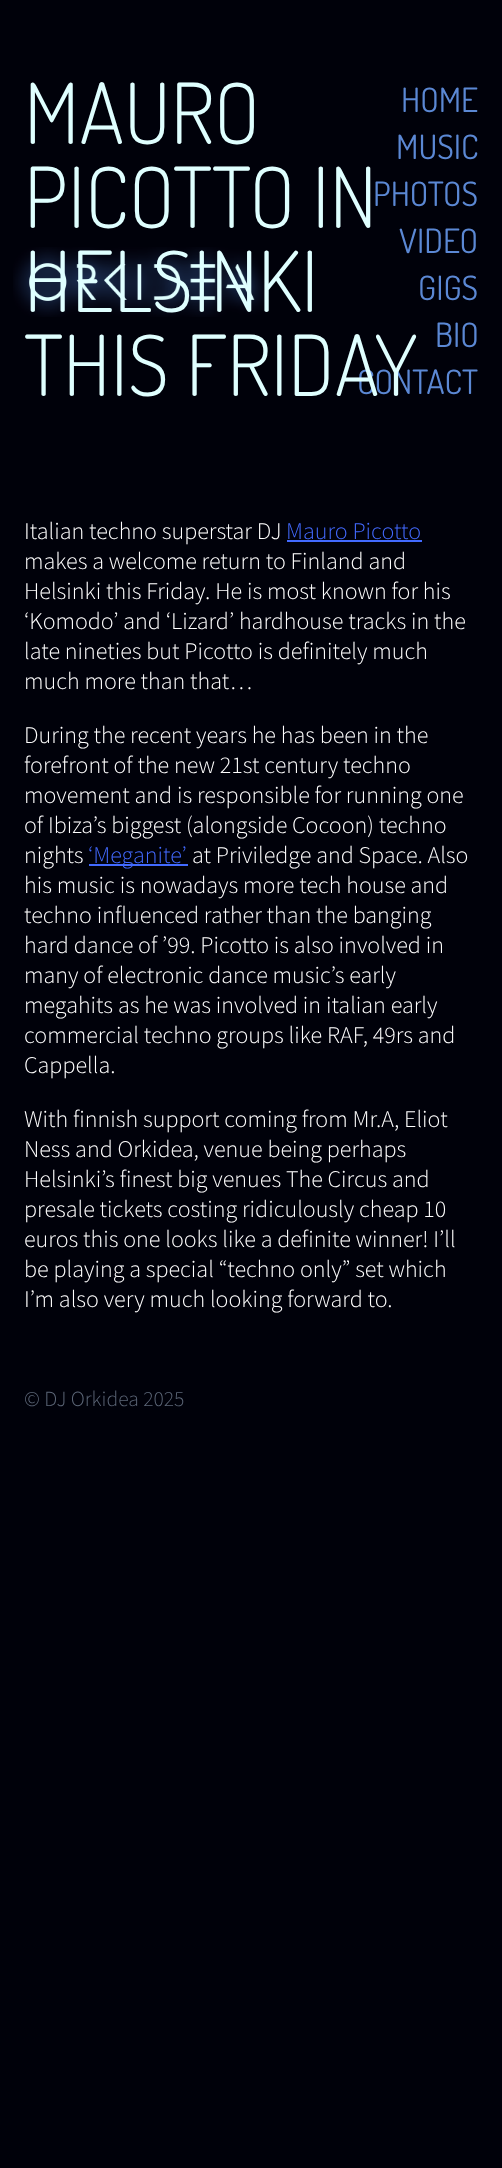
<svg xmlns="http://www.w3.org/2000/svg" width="502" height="2168">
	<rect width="100%" height="100%" fill="#00010A" />
	<g font-family="Dosis" font-size="84" font-weight="300" fill="#DFFFFF">
		<text x="24" y="144">MAURO</text>
		<text x="24" y="228">PICOTTO IN</text>
	</g>
	<image x="13" y="247" width="254" height="70" href="assets/img1.png" />
	<text x="24" y="312" font-family="Dosis" font-size="84" font-weight="300" fill="#DFFFFF">HELSINKI</text>
	<text x="357" y="394" font-family="Dosis" font-size="33.5" fill="#5B88D4">CONTACT</text>
	<text x="24" y="396" font-family="Dosis" font-size="84" font-weight="300" fill="#DFFFFF">THIS FRIDAY</text>
	<g font-family="Dosis" font-size="33.5" fill="#5B88D4">
		<text x="401" y="112">HOME</text>
		<text x="396" y="159">MUSIC</text>
		<text x="373" y="206">PHOTOS</text>
		<text x="399" y="253">VIDEO</text>
		<text x="418" y="300">GIGS</text>
		<text x="435" y="347">BIO</text>
	</g>
	<text x="24" y="539" font-family="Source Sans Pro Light" font-size="24" font-weight="300" fill="#FFFFFF">Italian techno superstar DJ</text>
	<text x="286" y="539" font-family="Source Sans Pro Light" font-size="24" font-weight="300" fill="#426AFF">Mauro Picotto</text>
	<rect x="287" y="540" width="135" height="2" fill="#426AFF" />
	<g font-family="Source Sans Pro Light" font-size="24" font-weight="300" fill="#FFFFFF">
		<text x="24" y="569">makes a welcome return to Finland and</text>
		<text x="24" y="599">Helsinki this Friday. He is most known for his</text>
		<text x="24" y="629">‘Komodo’ and ‘Lizard’ hardhouse tracks in the</text>
		<text x="24" y="659">late nineties but Picotto is definitely much</text>
		<text x="24" y="689">much more than that…</text>
		<text x="24" y="743">During the recent years he has been in the</text>
		<text x="24" y="773">forefront of the new 21st century techno</text>
		<text x="24" y="803">movement and is responsible for running one</text>
		<text x="24" y="833">of Ibiza’s biggest (alongside Cocoon) techno</text>
		<text x="24" y="863">nights</text>
	</g>
	<rect x="89" y="864" width="99" height="2" fill="#426AFF" />
	<text x="88" y="863" font-family="Source Sans Pro Light" font-size="24" font-weight="300" fill="#426AFF">‘Meganite’</text>
	<g font-family="Source Sans Pro Light" font-size="24" font-weight="300" fill="#FFFFFF">
		<text x="192" y="863">at Priviledge and Space. Also</text>
		<text x="24" y="893">his music is nowadays more tech house and</text>
		<text x="24" y="923">techno influenced rather than the banging</text>
		<text x="24" y="953">hard dance of ’99. Picotto is also involved in</text>
		<text x="24" y="983">many of electronic dance music’s early</text>
		<text x="24" y="1013">megahits as he was involved in italian early</text>
		<text x="24" y="1043">commercial techno groups like RAF, 49rs and</text>
		<text x="24" y="1073">Cappella.</text>
		<text x="24" y="1127">With finnish support coming from Mr.A, Eliot</text>
		<text x="24" y="1157">Ness and Orkidea, venue being perhaps</text>
		<text x="24" y="1187">Helsinki’s finest big venues The Circus and</text>
		<text x="24" y="1217">presale tickets costing ridiculously cheap 10</text>
		<text x="24" y="1247">euros this one looks like a definite winner! I’ll</text>
		<text x="24" y="1277">be playing a special “techno only” set which</text>
		<text x="24" y="1307">I’m also very much looking forward to.</text>
	</g>
	<text x="24" y="1406" font-family="Source Sans Pro Light" font-size="21.5" font-weight="300" fill="#5B6677">© DJ Orkidea 2025</text>
</svg>
